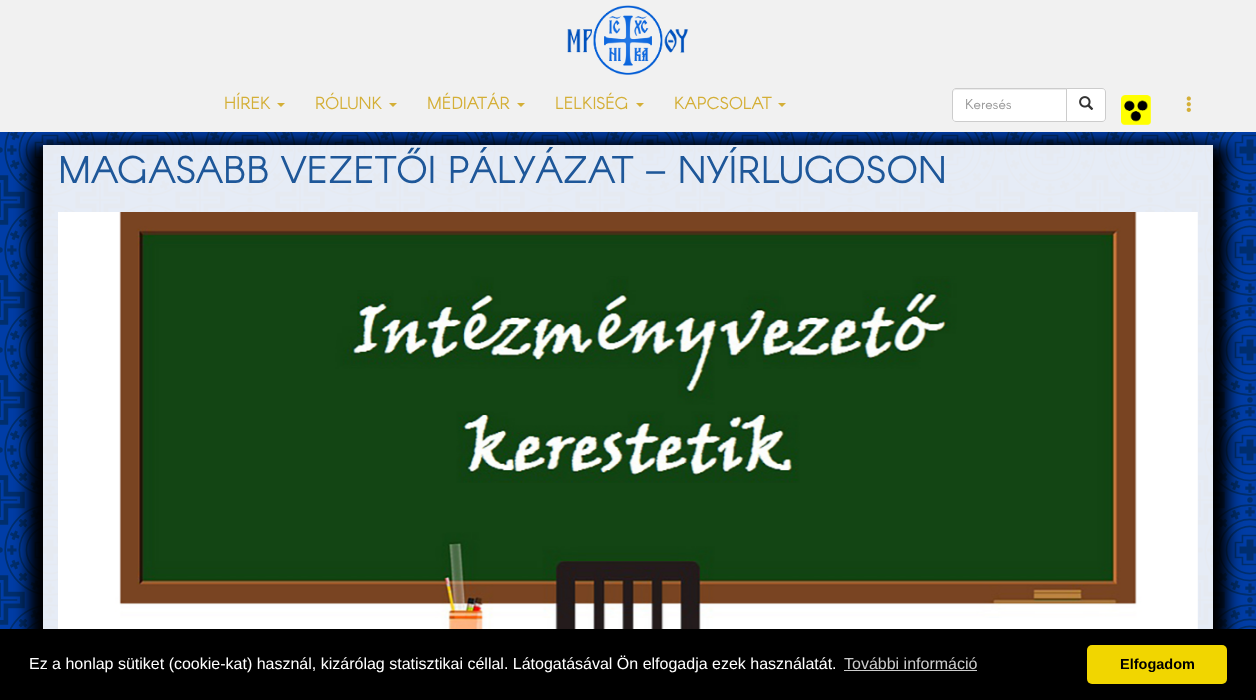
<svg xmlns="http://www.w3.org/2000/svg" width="1256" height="700">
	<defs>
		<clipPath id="clip1"><path d="M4 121H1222V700H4ZM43 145H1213V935H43Z" clip-rule="evenodd" /></clipPath>
		<clipPath id="clip2"><path d="M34 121H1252V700H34ZM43 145H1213V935H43Z" clip-rule="evenodd" /></clipPath>
	</defs>
	<rect width="100%" height="100%" fill="#FFFFFF" />
	<image x="0" y="132" width="1256" height="497" href="assets/img1.png" />
	<g clip-path="url(#clip1)">
		<rect x="28" y="145" width="1170" height="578" fill="#000000" filter="blur(7.5px)" />
	</g>
	<g clip-path="url(#clip2)">
		<rect x="58" y="145" width="1170" height="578" fill="#000000" filter="blur(7.5px)" />
	</g>
	<rect x="0" y="0" width="1256" height="132" fill="#F1F1F1" />
	<image x="567" y="5" width="122" height="70" href="assets/img2.png" />
	<text x="224" y="109" font-family="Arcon" font-size="17" fill="#D4AF37">HÍREK</text>
	<path d="M277 103H285L281 107Z" fill="#D4AF37" />
	<text x="315" y="109" font-family="Arcon" font-size="17" fill="#D4AF37">RÓLUNK</text>
	<path d="M389 103H397L393 107Z" fill="#D4AF37" />
	<text x="427" y="109" font-family="Arcon" font-size="17" fill="#D4AF37">MÉDIATÁR</text>
	<path d="M517 103H525L521 107Z" fill="#D4AF37" />
	<text x="555" y="109" font-family="Arcon" font-size="17" fill="#D4AF37">LELKISÉG</text>
	<path d="M636 103H644L640 107Z" fill="#D4AF37" />
	<text x="674" y="109" font-family="Arcon" font-size="17" fill="#D4AF37">KAPCSOLAT</text>
	<path d="M778 103H786L782 107Z" fill="#D4AF37" />
	<path d="M956 88H1067V122H956C954 122 952 120 952 118V92C952 90 954 88 956 88Z" fill="#FFFFFF" />
	<path d="M956 90H1066V89H956C954 89 953 90 953 92V93C953 91 954 90 956 90Z" fill="#ECECEC" />
	<path d="M956 88.5H1066.5V121.5H956C954 121.5 952.5 120 952.5 118V92C952.5 90 954 88.5 956 88.5Z" fill="none" stroke="#CCCCCC" />
	<text x="965" y="109" font-family="Arcon" font-size="14" fill="#999999">Keresés</text>
	<path d="M1066.5 88.5H1102C1104 88.5 1105.5 90 1105.5 92V118C1105.5 120 1104 121.5 1102 121.5H1066.5Z" fill="#FFFFFF" stroke="#CCCCCC" />
	<image x="1079" y="96" width="15" height="14" href="assets/img3.png" />
	<image x="1121" y="95" width="30" height="30" href="assets/img4.png" />
	<image x="1186" y="96" width="5" height="16" href="assets/img5.png" />
	<rect x="43" y="145" width="1170" height="484" fill="#FFFFFF" fill-opacity="0.9" />
	<text x="58" y="183" font-family="Arcon" font-size="38" fill="#1E5799">MAGASABB VEZETŐI PÁLYÁZAT – NYÍRLUGOSON</text>
	<image x="58" y="212" width="1140" height="417" href="assets/img6.png" />
	<rect x="0" y="629" width="1256" height="71" fill="#000000" />
	<text x="29" y="669" font-family="Liberation Sans" font-size="16" fill="#FFFFFF">Ez a honlap sütiket (cookie-kat) használ, kizárólag statisztikai céllal. Látogatásával Ön elfogadja ezek használatát.</text>
	<text x="844" y="669" font-family="Liberation Sans" font-size="16" fill="#CCCCCC">További információ</text>
	<rect x="844" y="670" width="133" height="1" fill="#CCCCCC" />
	<rect x="1087" y="645" width="140" height="39" rx="5" fill="#F1D600" />
	<text x="1120" y="669" font-family="Liberation Sans" font-size="14.5" font-weight="700" fill="#000000">Elfogadom</text>
</svg>
